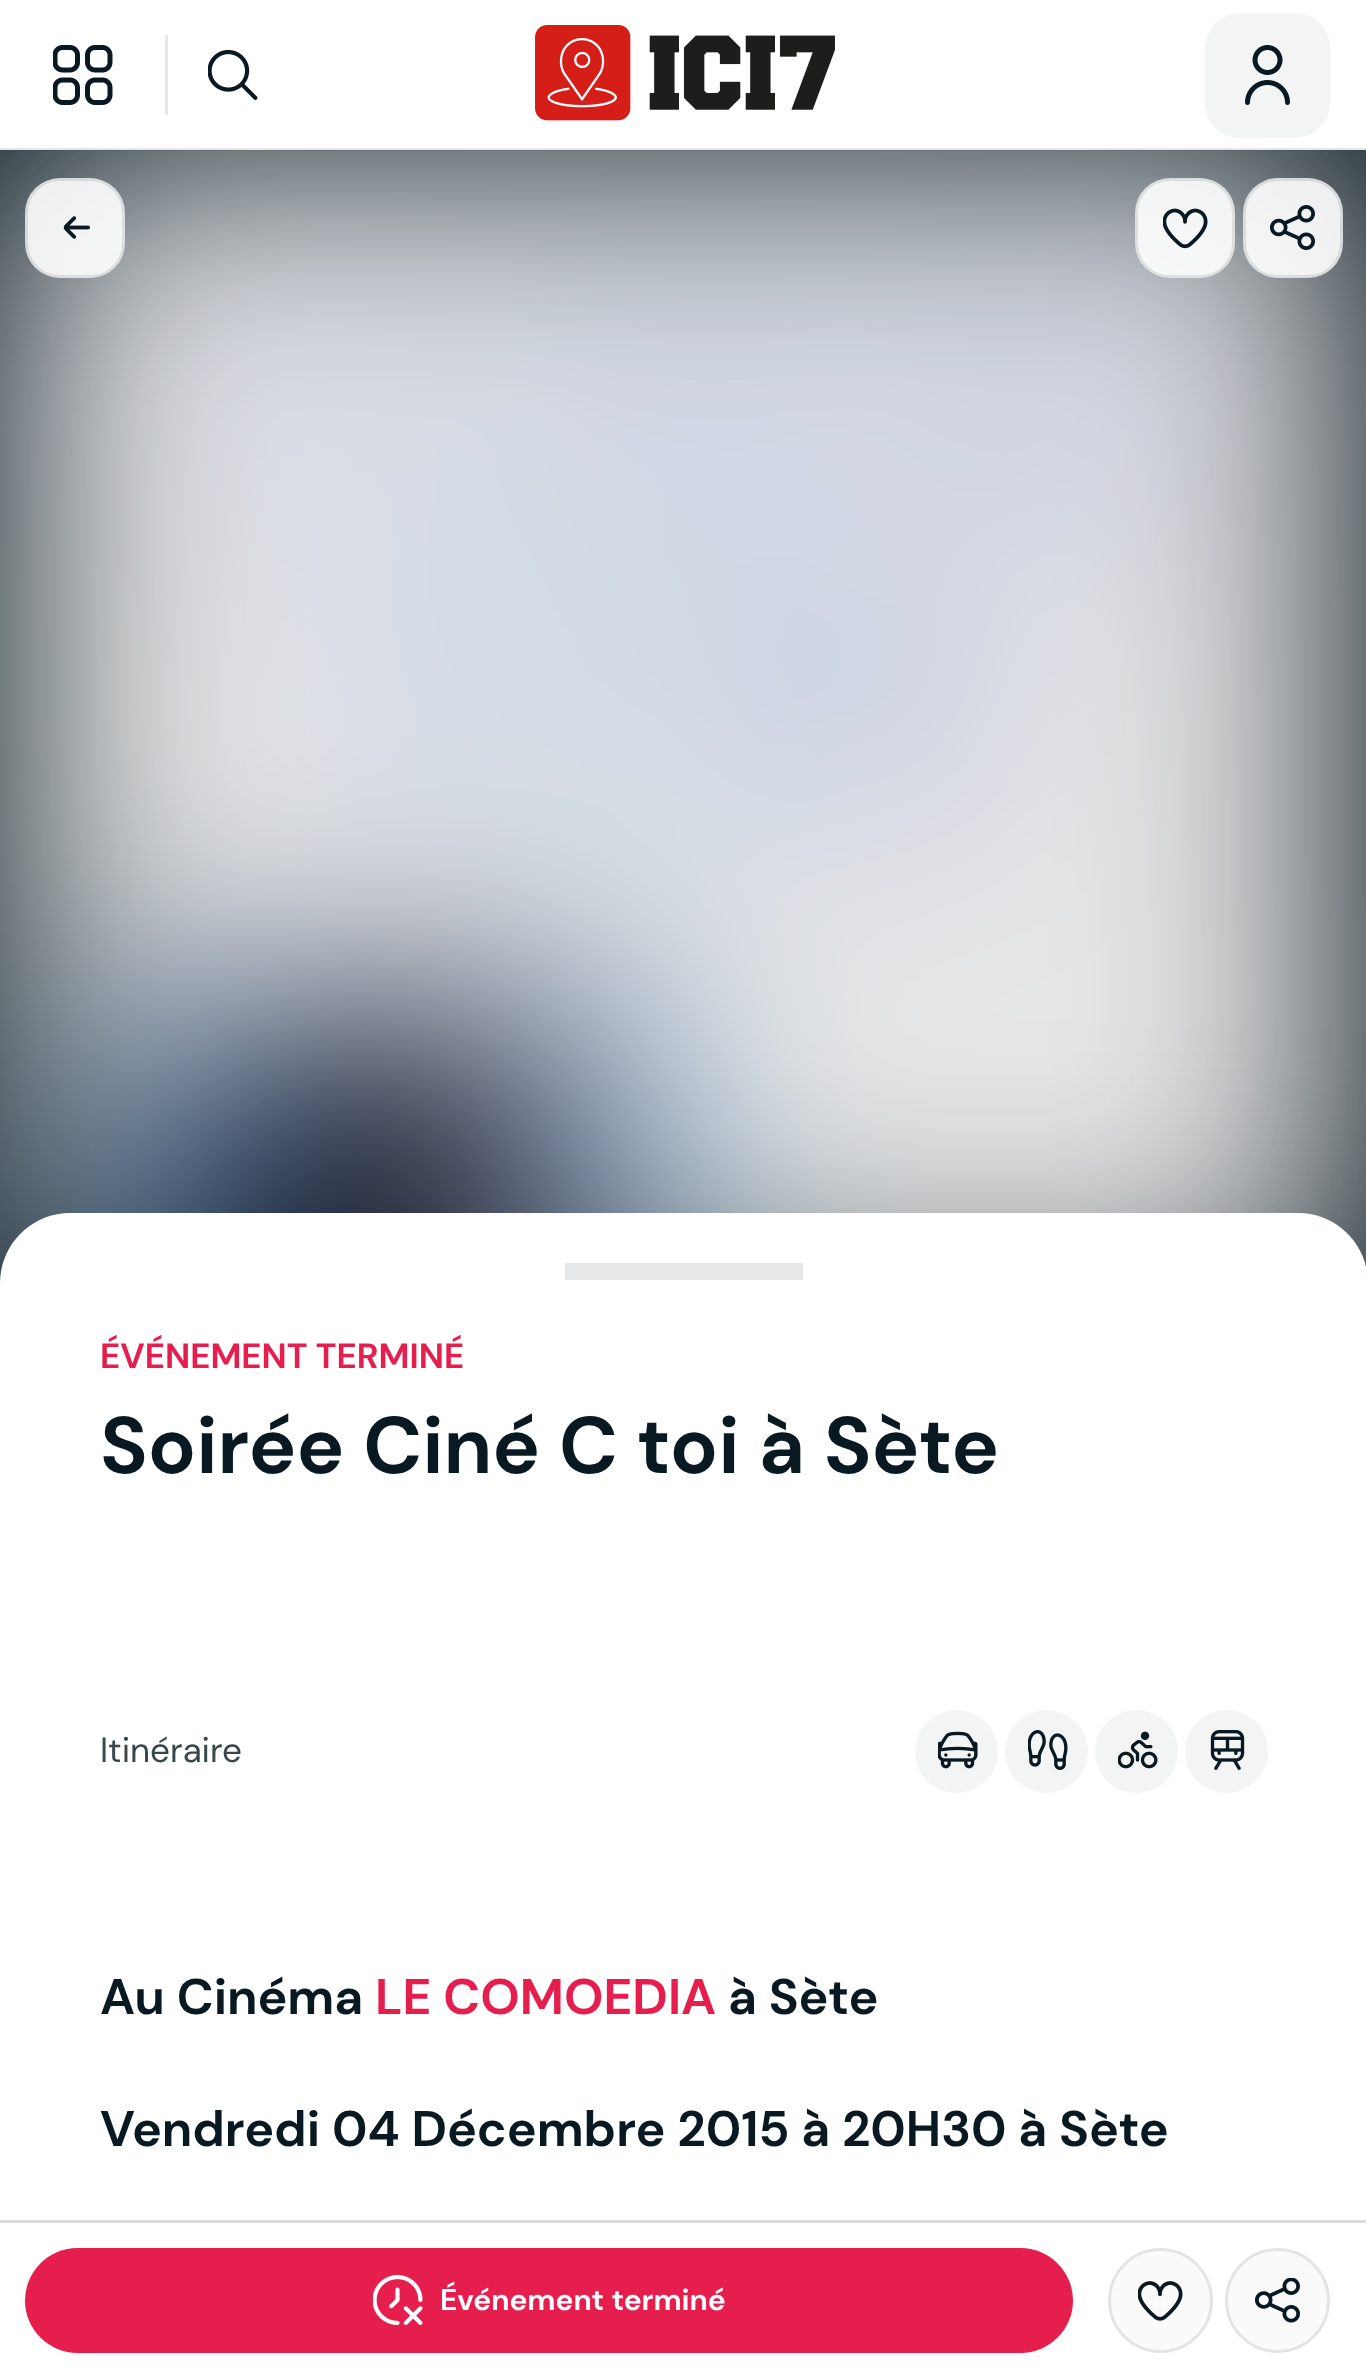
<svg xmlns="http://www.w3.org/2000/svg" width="1366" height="2376">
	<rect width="100%" height="100%" fill="#FFFFFF" />
	<rect x="0" y="150" width="1366" height="1133" fill="#081921" />
	<image x="0" y="150" width="1366" height="1133" href="assets/img5.png" />
	<rect x="0" y="148" width="1366" height="3" fill="#081921" fill-opacity="0.1" />
	<image x="53" y="45" width="60" height="60" href="assets/img1.png" />
	<rect x="165" y="35" width="3" height="80" fill="#E6E8E9" />
	<image x="208" y="50" width="50" height="50" href="assets/img2.png" />
	<image x="535" y="25" width="300" height="96" href="assets/img3.png" />
	<rect x="1205" y="13" width="125" height="125" rx="35" fill="#F3F4F4" />
	<image x="1245" y="45" width="45" height="60" href="assets/img4.png" />
	<rect x="25" y="178" width="100" height="100" rx="35" fill="#FFFFFF" fill-opacity="0.9" />
	<rect x="26.5" y="179.5" width="97" height="97" rx="33.5" fill="none" stroke="#081921" stroke-opacity="0.1" stroke-width="3" />
	<image x="63" y="216" width="27" height="23" href="assets/img6.png" />
	<rect x="1135" y="178" width="100" height="100" rx="35" fill="#FFFFFF" fill-opacity="0.9" />
	<rect x="1136.5" y="179.5" width="97" height="97" rx="33.5" fill="none" stroke="#081921" stroke-opacity="0.1" stroke-width="3" />
	<image x="1163" y="208" width="45" height="41" href="assets/img7.png" />
	<rect x="1243" y="178" width="100" height="100" rx="35" fill="#FFFFFF" fill-opacity="0.9" />
	<rect x="1244.5" y="179.5" width="97" height="97" rx="33.5" fill="none" stroke="#081921" stroke-opacity="0.1" stroke-width="3" />
	<image x="1270" y="205" width="45" height="45" href="assets/img8.png" />
	<path d="M70 1213H1298C1336.5 1213 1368 1244.5 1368 1283V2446H0V1283C0 1244.5 31.5 1213 70 1213Z" fill="#FFFFFF" />
	<rect x="565" y="1263" width="238" height="17" fill="#E6E8E9" />
	<text x="100" y="1368" font-family="DM Sans" font-size="35" font-weight="700" fill="#E61E4D">ÉVÉNEMENT TERMINÉ</text>
	<text x="100" y="1473" font-family="DM Sans" font-size="80" font-weight="700" fill="#081921">Soirée Ciné C toi à Sète</text>
	<text x="100" y="1762" font-family="DM Sans" font-size="35" fill="#39474D">Itinéraire</text>
	<circle cx="956.5" cy="1751.5" r="41.5" fill="#F3F4F4" />
	<image x="938" y="1731" width="40" height="38" href="assets/img9.png" />
	<circle cx="1046.5" cy="1751.5" r="41.5" fill="#F3F4F4" />
	<image x="1028" y="1730" width="40" height="40" href="assets/img10.png" />
	<circle cx="1136.5" cy="1751.5" r="41.5" fill="#F3F4F4" />
	<image x="1118" y="1731" width="40" height="38" href="assets/img11.png" />
	<circle cx="1226.5" cy="1751.5" r="41.5" fill="#F3F4F4" />
	<image x="1210" y="1730" width="35" height="40" href="assets/img12.png" />
	<text x="100" y="2014" font-family="DM Sans" font-size="50" font-weight="700" fill="#081921">Au Cinéma</text>
	<text x="375" y="2014" font-family="DM Sans" font-size="50" font-weight="700" fill="#E61E4D">LE COMOEDIA</text>
	<g font-family="DM Sans" font-size="50" font-weight="700" fill="#081921">
		<text x="728" y="2014">à Sète</text>
		<text x="100" y="2146">Vendredi 04 Décembre 2015 à 20H30 à Sète</text>
	</g>
	<rect x="0" y="2220" width="1366" height="3" fill="#DDDDDD" />
	<rect x="25" y="2248" width="1048" height="105" rx="52.5" fill="#E61E4D" />
	<image x="373" y="2275" width="50" height="50" href="assets/img13.png" />
	<text x="440" y="2310" font-family="DM Sans" font-size="30" font-weight="700" fill="#FFFFFF">Événement terminé</text>
	<circle cx="1160.5" cy="2300.5" r="51" fill="#FAFAFB" stroke="#E2E4E5" stroke-width="3" />
	<image x="1138" y="2281" width="45" height="40" href="assets/img14.png" />
	<circle cx="1277.5" cy="2300.5" r="51" fill="#FAFAFB" stroke="#E2E4E5" stroke-width="3" />
	<image x="1255" y="2278" width="45" height="45" href="assets/img15.png" />
</svg>
